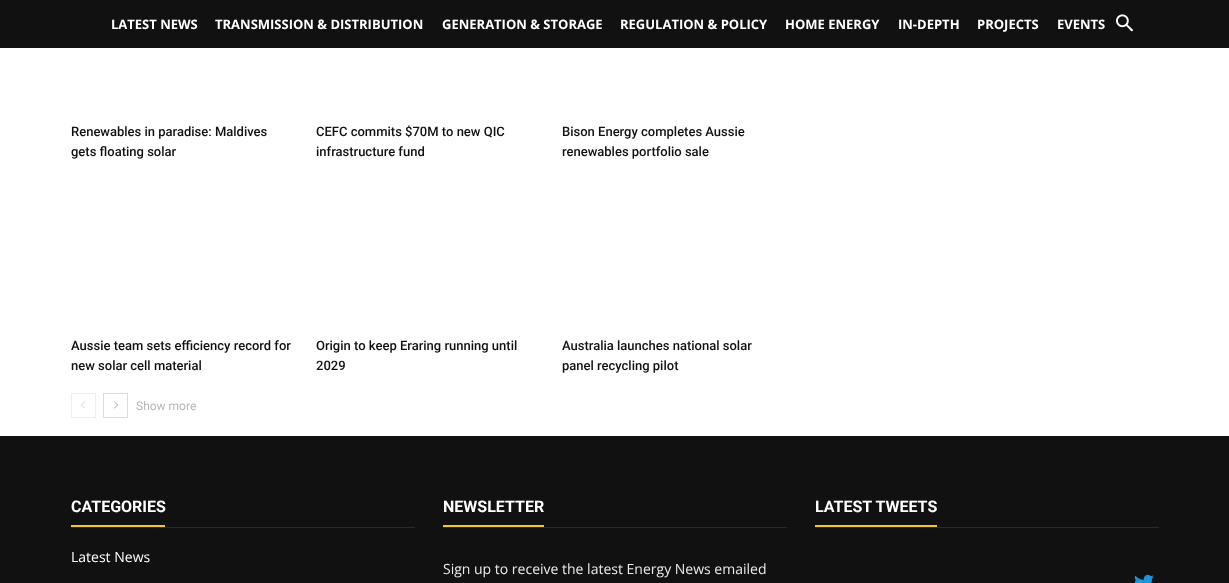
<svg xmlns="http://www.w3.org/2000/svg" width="1229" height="583">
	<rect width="100%" height="100%" fill="#FFFFFF" />
	<rect x="0" y="0" width="1229" height="48" fill="#111111" />
	<g font-family="Open Sans" font-size="13" font-weight="700" fill="#FFFFFF">
		<text x="111" y="29">LATEST NEWS</text>
		<text x="215" y="29">TRANSMISSION &amp; DISTRIBUTION</text>
		<text x="442" y="29">GENERATION &amp; STORAGE</text>
		<text x="620" y="29">REGULATION &amp; POLICY</text>
		<text x="785" y="29">HOME ENERGY</text>
		<text x="898" y="29">IN-DEPTH</text>
		<text x="977" y="29">PROJECTS</text>
		<text x="1057" y="29">EVENTS</text>
	</g>
	<image x="1116" y="14" width="17" height="18" href="assets/img1.png" />
	<g font-family="Roboto" font-size="13" font-weight="500" fill="#111111">
		<text x="71" y="136">Renewables in paradise: Maldives</text>
		<text x="71" y="156">gets floating solar</text>
		<text x="316" y="136">CEFC commits $70M to new QIC</text>
		<text x="316" y="156">infrastructure fund</text>
		<text x="562" y="136">Bison Energy completes Aussie</text>
		<text x="562" y="156">renewables portfolio sale</text>
		<text x="71" y="350">Aussie team sets efficiency record for</text>
		<text x="71" y="370">new solar cell material</text>
		<text x="316" y="350">Origin to keep Eraring running until</text>
		<text x="316" y="370">2029</text>
		<text x="562" y="350">Australia launches national solar</text>
		<text x="562" y="370">panel recycling pilot</text>
	</g>
	<rect x="71.5" y="393.5" width="24" height="24" fill="none" stroke="#EEEEEE" />
	<image x="80" y="401" width="5" height="8" href="assets/img2.png" />
	<rect x="103.5" y="393.5" width="24" height="24" fill="none" stroke="#DCDCDC" />
	<image x="114" y="401" width="5" height="8" href="assets/img3.png" />
	<text x="136" y="410" font-family="Roboto" font-size="12" fill="#B7B7B7">Show more</text>
	<rect x="0" y="436" width="1229" height="147" fill="#111111" />
	<rect x="71" y="527" width="344" height="1" fill="#292929" />
	<rect x="71" y="525" width="94" height="2" fill="#F1C631" />
	<text x="71" y="512" font-family="Roboto" font-size="16" font-weight="700" fill="#FFFFFF">CATEGORIES</text>
	<text x="71" y="562" font-family="Open Sans" font-size="14" fill="#FFFFFF">Latest News</text>
	<rect x="443" y="527" width="344" height="1" fill="#292929" />
	<rect x="443" y="525" width="101" height="2" fill="#F1C631" />
	<text x="443" y="512" font-family="Roboto" font-size="16" font-weight="700" fill="#FFFFFF">NEWSLETTER</text>
	<text x="443" y="574" font-family="Open Sans" font-size="14" fill="#EAEAEA">Sign up to receive the latest Energy News emailed</text>
	<rect x="815" y="527" width="344" height="1" fill="#292929" />
	<rect x="815" y="525" width="122" height="2" fill="#F1C631" />
	<text x="815" y="512" font-family="Roboto" font-size="16" font-weight="700" fill="#FFFFFF">LATEST TWEETS</text>
	<image x="1134" y="574" width="20" height="9" href="assets/img4.png" />
</svg>
